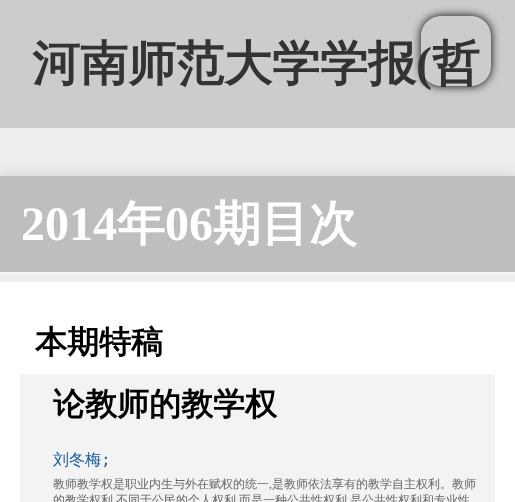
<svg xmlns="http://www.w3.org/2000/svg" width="515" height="502">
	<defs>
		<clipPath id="clip1"><path d="M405 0H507V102H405ZM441 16H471C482 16 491 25 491 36V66C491 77 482 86 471 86H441C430 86 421 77 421 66V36C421 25 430 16 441 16Z" clip-rule="evenodd" /></clipPath>
		<clipPath id="clip2"><rect x="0" y="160" width="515" height="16" /></clipPath>
	</defs>
	<rect width="100%" height="100%" fill="#CCCCCC" />
	<g clip-path="url(#clip1)">
		<rect x="421" y="16" width="70" height="70" rx="20" fill="#000000" filter="blur(5px)" />
	</g>
	<text x="32" y="80" font-family="WenQuanYi Zen Hei" font-size="48" font-weight="700" fill="#333333">河南师范大学学报</text>
	<text x="416" y="80" font-family="Liberation Serif" font-size="48" font-weight="700" fill="#333333">(</text>
	<text x="432" y="80" font-family="WenQuanYi Zen Hei" font-size="48" font-weight="700" fill="#333333">哲</text>
	<rect x="0" y="128" width="515" height="154" fill="#EEEEEE" />
	<g clip-path="url(#clip2)">
		<rect x="0" y="176" width="515" height="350" fill="#CCCCCC" filter="blur(8px)" />
	</g>
	<rect x="0" y="176" width="515" height="96" fill="#BEBEBE" />
	<rect x="0" y="272" width="515" height="2" fill="#F5F5F5" />
	<text x="21" y="240" font-family="Liberation Serif" font-size="48" font-weight="700" fill="#FFFFFF">2014</text>
	<text x="117" y="240" font-family="WenQuanYi Zen Hei" font-size="48" font-weight="700" fill="#FFFFFF">年</text>
	<text x="165" y="240" font-family="Liberation Serif" font-size="48" font-weight="700" fill="#FFFFFF">06</text>
	<text x="213" y="240" font-family="WenQuanYi Zen Hei" font-size="48" font-weight="700" fill="#FFFFFF">期目次</text>
	<rect x="0" y="282" width="515" height="220" fill="#FFFFFF" />
	<text x="35" y="353" font-family="WenQuanYi Zen Hei" font-size="32" font-weight="700" fill="#000000">本期特稿</text>
	<rect x="20" y="374" width="475" height="128" fill="#F3F3F3" />
	<text x="53" y="415" font-family="WenQuanYi Zen Hei" font-size="32" font-weight="700" fill="#000000">论教师的教学权</text>
	<text x="53" y="465" font-family="WenQuanYi Zen Hei" font-size="16" font-weight="500" fill="#175CA8">刘冬梅</text>
	<text x="101" y="465" font-family="DejaVu Sans Mono" font-size="16" fill="#175CA8">;</text>
	<text x="53" y="488" font-family="WenQuanYi Zen Hei" font-size="12" font-weight="500" fill="#666666">教师教学权是职业内生与外在赋权的统一</text>
	<text x="269" y="488" font-family="Liberation Serif" font-size="12" fill="#666666">,</text>
	<g font-family="WenQuanYi Zen Hei" font-size="12" font-weight="500" fill="#666666">
		<text x="272" y="488">是教师依法享有的教学自主权利。教师</text>
		<text x="53" y="504">的教学权利</text>
		<text x="116" y="504">不同于公民的个人权利</text>
		<text x="239" y="504">而是一种公共性权利</text>
		<text x="350" y="504">是公共性权利和专业性</text>
	</g>
</svg>
